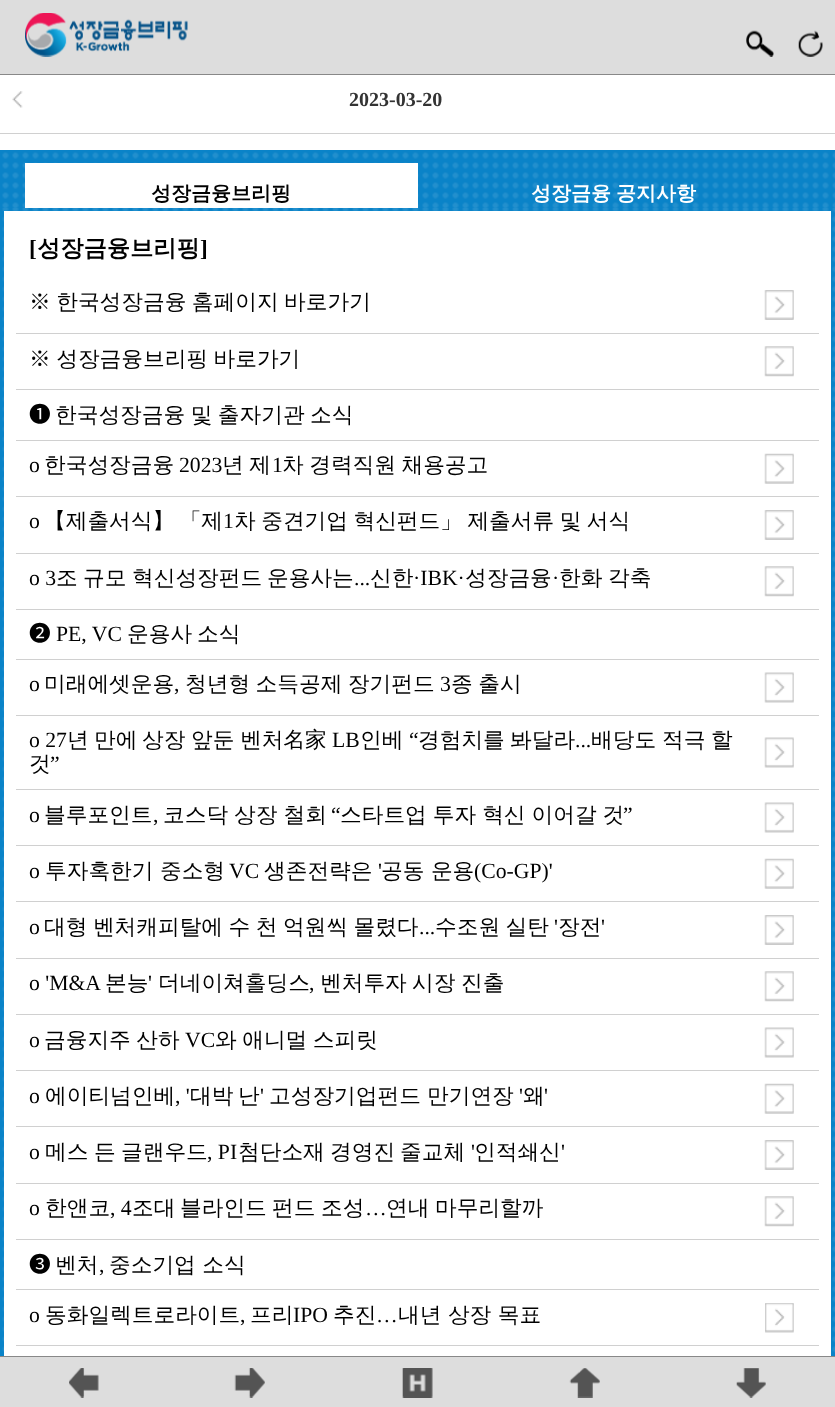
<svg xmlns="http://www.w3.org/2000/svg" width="835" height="1407">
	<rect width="100%" height="100%" fill="#FFFFFF" />
	<rect x="0" y="0" width="835" height="74" fill="#DDDDDD" />
	<rect x="0" y="74" width="835" height="1" fill="#888888" />
	<image x="25" y="13" width="163" height="44" href="assets/img1.png" />
	<image x="746" y="30" width="28" height="27" href="assets/img2.png" />
	<image x="798" y="30" width="25" height="27" href="assets/img3.png" />
	<rect x="0" y="133" width="835" height="1" fill="#D0D0D0" />
	<image x="12" y="91" width="11" height="17" href="assets/img4.png" />
	<text x="349" y="106" font-family="Liberation Serif" font-size="20" font-weight="700" fill="#333333">2023-03-20</text>
	<rect x="0" y="150" width="835" height="1206" fill="#0A83C8" />
	<image x="2" y="152" width="833" height="56" href="assets/img5.png" />
	<rect x="25" y="163" width="393" height="45" fill="#FFFFFF" />
	<text x="151" y="200" font-family="WenQuanYi Zen Hei" font-size="20" font-weight="700" fill="#000000">성장금융브리핑</text>
	<text x="531" y="200" word-spacing="-1" font-family="WenQuanYi Zen Hei" font-size="20" font-weight="700" fill="#FFFFFF">성장금융 공지사항</text>
	<image x="2" y="208" width="833" height="1145" href="assets/img6.png" />
	<rect x="4" y="211" width="827" height="1145" fill="#FFFFFF" />
	<text x="29" y="256" font-family="Liberation Serif" font-size="23.25" font-weight="700" fill="#000000">[</text>
	<text x="37" y="256" font-family="WenQuanYi Zen Hei" font-size="23.25" font-weight="700" fill="#000000">성장금융브리핑</text>
	<text x="200" y="256" font-family="Liberation Serif" font-size="23.25" font-weight="700" fill="#000000">]</text>
	<rect x="16" y="333" width="803" height="1" fill="#D0D0D0" />
	<image x="764" y="290" width="30" height="30" href="assets/img7.png" />
	<text x="29" y="309" word-spacing="-1" font-family="WenQuanYi Zen Hei" font-size="21.7" font-weight="500" fill="#000000">※ 한국성장금융 홈페이지 바로가기</text>
	<rect x="16" y="389" width="803" height="1" fill="#D0D0D0" />
	<image x="764" y="346" width="30" height="31" href="assets/img8.png" />
	<text x="29" y="366" word-spacing="-1" font-family="WenQuanYi Zen Hei" font-size="21.7" font-weight="500" fill="#000000">※ 성장금융브리핑 바로가기</text>
	<rect x="16" y="440" width="803" height="1" fill="#D0D0D0" />
	<text x="29" y="422" font-family="Noto Sans CJK KR" font-size="21.7" fill="#000000">❶</text>
	<text x="55" y="422" word-spacing="-1" font-family="WenQuanYi Zen Hei" font-size="21.7" font-weight="500" fill="#000000">한국성장금융 및 출자기관 소식</text>
	<rect x="16" y="496" width="803" height="1" fill="#D0D0D0" />
	<image x="764" y="453" width="30" height="31" href="assets/img9.png" />
	<text x="29" y="472" font-family="Liberation Serif" font-size="21.7" fill="#000000">o</text>
	<text x="44" y="472" font-family="WenQuanYi Zen Hei" font-size="21.7" font-weight="500" fill="#000000">한국성장금융</text>
	<text x="179" y="472" font-family="Liberation Serif" font-size="21.7" fill="#000000">2023</text>
	<text x="222" y="472" word-spacing="-1" font-family="WenQuanYi Zen Hei" font-size="21.7" font-weight="500" fill="#000000">년 제</text>
	<text x="272" y="472" font-family="Liberation Serif" font-size="21.7" fill="#000000">1</text>
	<text x="282" y="472" word-spacing="-1" font-family="WenQuanYi Zen Hei" font-size="21.7" font-weight="500" fill="#000000">차 경력직원 채용공고</text>
	<rect x="16" y="553" width="803" height="1" fill="#D0D0D0" />
	<image x="764" y="510" width="30" height="30" href="assets/img7.png" />
	<text x="29" y="528" font-family="Liberation Serif" font-size="21.7" fill="#000000">o</text>
	<text x="44" y="528" word-spacing="-1" font-family="WenQuanYi Zen Hei" font-size="21.7" font-weight="500" fill="#000000">【제출서식】 「제</text>
	<text x="223" y="528" font-family="Liberation Serif" font-size="21.7" fill="#000000">1</text>
	<text x="234" y="528" word-spacing="-1" font-family="WenQuanYi Zen Hei" font-size="21.7" font-weight="500" fill="#000000">차 중견기업 혁신펀드」 제출서류 및 서식</text>
	<rect x="16" y="609" width="803" height="1" fill="#D0D0D0" />
	<image x="764" y="566" width="30" height="31" href="assets/img10.png" />
	<text x="29" y="585" font-family="Liberation Serif" font-size="21.7" fill="#000000">o 3</text>
	<g font-family="WenQuanYi Zen Hei" font-size="21.7" font-weight="500" fill="#000000">
		<text x="56" y="585">조</text>
		<text x="83" y="585">규모</text>
		<text x="132" y="585">혁신성장펀드</text>
		<text x="267" y="585">운용사는</text>
		<text x="370" y="585">신한</text>
	</g>
	<text x="413" y="585" font-family="Liberation Serif" font-size="21.7" fill="#000000">·IBK·</text>
	<text x="465" y="585" font-family="WenQuanYi Zen Hei" font-size="21.7" font-weight="500" fill="#000000">성장금융</text>
	<text x="552" y="585" font-family="Liberation Serif" font-size="21.7" fill="#000000">·</text>
	<g font-family="WenQuanYi Zen Hei" font-size="21.7" font-weight="500" fill="#000000">
		<text x="559" y="585">한화</text>
		<text x="608" y="585">각축</text>
	</g>
	<text x="354" y="585" font-family="Liberation Serif" font-size="21.7" fill="#000000">...</text>
	<rect x="16" y="659" width="803" height="1" fill="#D0D0D0" />
	<text x="29" y="641" font-family="Noto Sans CJK KR" font-size="21.7" fill="#000000">❷</text>
	<text x="56" y="641" font-family="Liberation Serif" font-size="21.7" fill="#000000">PE, VC</text>
	<g font-family="WenQuanYi Zen Hei" font-size="21.7" font-weight="500" fill="#000000">
		<text x="127" y="641">운용사</text>
		<text x="197" y="641">소식</text>
	</g>
	<rect x="16" y="715" width="803" height="1" fill="#D0D0D0" />
	<image x="764" y="672" width="30" height="31" href="assets/img11.png" />
	<text x="29" y="691" font-family="Liberation Serif" font-size="21.7" fill="#000000">o</text>
	<text x="44" y="691" font-family="WenQuanYi Zen Hei" font-size="21.7" font-weight="500" fill="#000000">미래에셋운용</text>
	<text x="174" y="691" font-family="Liberation Serif" font-size="21.7" fill="#000000">,</text>
	<text x="185" y="691" word-spacing="-1" font-family="WenQuanYi Zen Hei" font-size="21.7" font-weight="500" fill="#000000">청년형 소득공제 장기펀드</text>
	<text x="440" y="691" font-family="Liberation Serif" font-size="21.7" fill="#000000">3</text>
	<text x="451" y="691" word-spacing="-1" font-family="WenQuanYi Zen Hei" font-size="21.7" font-weight="500" fill="#000000">종 출시</text>
	<rect x="16" y="789" width="803" height="1" fill="#D0D0D0" />
	<image x="764" y="737" width="30" height="31" href="assets/img11.png" />
	<text x="29" y="747" font-family="Liberation Serif" font-size="21.7" fill="#000000">o 27</text>
	<g font-family="WenQuanYi Zen Hei" font-size="21.7" font-weight="500" fill="#000000">
		<text x="67" y="747">년</text>
		<text x="94" y="747">만에</text>
		<text x="142" y="747">상장</text>
		<text x="191" y="747">앞둔</text>
		<text x="240" y="747">벤처名家</text>
	</g>
	<text x="332" y="747" font-family="Liberation Serif" font-size="21.7" fill="#000000">LB</text>
	<text x="360" y="747" font-family="WenQuanYi Zen Hei" font-size="21.7" font-weight="500" fill="#000000">인베</text>
	<text x="409" y="747" font-family="Liberation Serif" font-size="21.7" fill="#000000">“</text>
	<g font-family="WenQuanYi Zen Hei" font-size="21.7" font-weight="500" fill="#000000">
		<text x="418" y="747">경험치를</text>
		<text x="510" y="747">봐달라</text>
		<text x="591" y="747">배당도</text>
		<text x="662" y="747">적극</text>
		<text x="711" y="747">할</text>
	</g>
	<text x="575" y="747" font-family="Liberation Serif" font-size="21.7" fill="#000000">...</text>
	<text x="29" y="771" font-family="WenQuanYi Zen Hei" font-size="21.7" font-weight="500" fill="#000000">것</text>
	<text x="50" y="771" font-family="Liberation Serif" font-size="21.7" fill="#000000">”</text>
	<rect x="16" y="845" width="803" height="1" fill="#D0D0D0" />
	<image x="764" y="802" width="30" height="31" href="assets/img11.png" />
	<text x="29" y="822" font-family="Liberation Serif" font-size="21.7" fill="#000000">o</text>
	<text x="44" y="822" font-family="WenQuanYi Zen Hei" font-size="21.7" font-weight="500" fill="#000000">블루포인트</text>
	<text x="153" y="822" font-family="Liberation Serif" font-size="21.7" fill="#000000">,</text>
	<text x="163" y="822" word-spacing="-0.5" font-family="WenQuanYi Zen Hei" font-size="21.7" font-weight="500" fill="#000000">코스닥 상장 철회</text>
	<text x="331" y="822" font-family="Liberation Serif" font-size="21.7" fill="#000000">“</text>
	<text x="340" y="822" word-spacing="-0.5" font-family="WenQuanYi Zen Hei" font-size="21.7" font-weight="500" fill="#000000">스타트업 투자 혁신 이어갈 것</text>
	<text x="623" y="822" font-family="Liberation Serif" font-size="21.7" fill="#000000">”</text>
	<rect x="16" y="901" width="803" height="1" fill="#D0D0D0" />
	<image x="764" y="858" width="30" height="31" href="assets/img12.png" />
	<text x="29" y="878" font-family="Liberation Serif" font-size="21.7" fill="#000000">o</text>
	<text x="45" y="878" font-family="WenQuanYi Zen Hei" font-size="21.7" font-weight="500" fill="#000000">투자혹한기 중소형</text>
	<text x="229" y="878" font-family="Liberation Serif" font-size="21.7" fill="#000000">VC</text>
	<text x="264" y="878" font-family="WenQuanYi Zen Hei" font-size="21.7" font-weight="500" fill="#000000">생존전략은</text>
	<text x="378" y="878" font-family="Liberation Serif" font-size="21.7" fill="#000000">'</text>
	<text x="381" y="878" font-family="WenQuanYi Zen Hei" font-size="21.7" font-weight="500" fill="#000000">공동 운용</text>
	<text x="474" y="878" font-family="Liberation Serif" font-size="21.7" fill="#000000">(Co-GP)'</text>
	<rect x="16" y="958" width="803" height="1" fill="#D0D0D0" />
	<image x="764" y="915" width="30" height="30" href="assets/img7.png" />
	<g font-family="WenQuanYi Zen Hei" font-size="21.7" font-weight="500" fill="#000000">
		<text x="44" y="934" word-spacing="-1">대형 벤처캐피탈에 수 천 억원씩 몰렸다</text>
		<text x="435" y="934" word-spacing="-1">수조원 실탄</text>
	</g>
	<text x="554" y="934" font-family="Liberation Serif" font-size="21.7" fill="#000000">'</text>
	<text x="558" y="934" font-family="WenQuanYi Zen Hei" font-size="21.7" font-weight="500" fill="#000000">장전</text>
	<g font-family="Liberation Serif" font-size="21.7" fill="#000000">
		<text x="601" y="934">'</text>
		<text x="29" y="934">o</text>
		<text x="419" y="934">...</text>
	</g>
	<rect x="16" y="1014" width="803" height="1" fill="#D0D0D0" />
	<image x="764" y="971" width="30" height="31" href="assets/img8.png" />
	<text x="29" y="990" font-family="Liberation Serif" font-size="21.7" fill="#000000">o 'M&amp;A</text>
	<text x="105" y="990" font-family="WenQuanYi Zen Hei" font-size="21.7" font-weight="500" fill="#000000">본능</text>
	<text x="148" y="990" font-family="Liberation Serif" font-size="21.7" fill="#000000">'</text>
	<g font-family="WenQuanYi Zen Hei" font-size="21.7" font-weight="500" fill="#000000">
		<text x="158" y="990">더네이쳐홀딩스</text>
		<text x="320" y="990">벤처투자</text>
		<text x="412" y="990">시장</text>
		<text x="461" y="990">진출</text>
	</g>
	<text x="309" y="990" font-family="Liberation Serif" font-size="21.7" fill="#000000">,</text>
	<rect x="16" y="1070" width="803" height="1" fill="#D0D0D0" />
	<image x="764" y="1027" width="30" height="31" href="assets/img11.png" />
	<text x="29" y="1047" font-family="Liberation Serif" font-size="21.7" fill="#000000">o</text>
	<text x="44" y="1047" word-spacing="-1" font-family="WenQuanYi Zen Hei" font-size="21.7" font-weight="500" fill="#000000">금융지주 산하</text>
	<text x="185" y="1047" font-family="Liberation Serif" font-size="21.7" fill="#000000">VC</text>
	<text x="215" y="1047" word-spacing="-1" font-family="WenQuanYi Zen Hei" font-size="21.7" font-weight="500" fill="#000000">와 애니멀 스피릿</text>
	<rect x="16" y="1126" width="803" height="1" fill="#D0D0D0" />
	<image x="764" y="1083" width="30" height="31" href="assets/img9.png" />
	<text x="45" y="1103" font-family="WenQuanYi Zen Hei" font-size="21.7" font-weight="500" fill="#000000">에이티넘인베</text>
	<text x="175" y="1103" font-family="Liberation Serif" font-size="21.7" fill="#000000">, '</text>
	<g font-family="WenQuanYi Zen Hei" font-size="21.7" font-weight="500" fill="#000000">
		<text x="190" y="1103">대박</text>
		<text x="238" y="1103">난</text>
	</g>
	<text x="260" y="1103" font-family="Liberation Serif" font-size="21.7" fill="#000000">'</text>
	<g font-family="WenQuanYi Zen Hei" font-size="21.7" font-weight="500" fill="#000000">
		<text x="269" y="1103">고성장기업펀드</text>
		<text x="427" y="1103">만기연장</text>
	</g>
	<text x="519" y="1103" font-family="Liberation Serif" font-size="21.7" fill="#000000">'</text>
	<text x="523" y="1103" font-family="WenQuanYi Zen Hei" font-size="21.7" font-weight="500" fill="#000000">왜</text>
	<g font-family="Liberation Serif" font-size="21.7" fill="#000000">
		<text x="544" y="1103">'</text>
		<text x="29" y="1103">o</text>
	</g>
	<rect x="16" y="1183" width="803" height="1" fill="#D0D0D0" />
	<image x="764" y="1140" width="30" height="30" href="assets/img7.png" />
	<g font-family="WenQuanYi Zen Hei" font-size="21.7" font-weight="500" fill="#000000">
		<text x="45" y="1159">메스</text>
		<text x="94" y="1159">든</text>
		<text x="121" y="1159">글랜우드</text>
	</g>
	<text x="207" y="1159" font-family="Liberation Serif" font-size="21.7" fill="#000000">, PI</text>
	<g font-family="WenQuanYi Zen Hei" font-size="21.7" font-weight="500" fill="#000000">
		<text x="238" y="1159">첨단소재</text>
		<text x="330" y="1159">경영진</text>
		<text x="400" y="1159">줄교체</text>
	</g>
	<text x="471" y="1159" font-family="Liberation Serif" font-size="21.7" fill="#000000">'</text>
	<text x="474" y="1159" font-family="WenQuanYi Zen Hei" font-size="21.7" font-weight="500" fill="#000000">인적쇄신</text>
	<g font-family="Liberation Serif" font-size="21.7" fill="#000000">
		<text x="561" y="1159">'</text>
		<text x="29" y="1159">o</text>
	</g>
	<rect x="16" y="1239" width="803" height="1" fill="#D0D0D0" />
	<image x="764" y="1196" width="30" height="31" href="assets/img8.png" />
	<text x="29" y="1215" font-family="Liberation Serif" font-size="21.7" fill="#000000">o</text>
	<text x="45" y="1215" font-family="WenQuanYi Zen Hei" font-size="21.7" font-weight="500" fill="#000000">한앤코</text>
	<text x="110" y="1215" font-family="Liberation Serif" font-size="21.7" fill="#000000">, 4</text>
	<g font-family="WenQuanYi Zen Hei" font-size="21.7" font-weight="500" fill="#000000">
		<text x="132" y="1215">조대</text>
		<text x="180" y="1215">블라인드</text>
		<text x="272" y="1215">펀드</text>
		<text x="321" y="1215">조성</text>
	</g>
	<text x="365" y="1215" font-family="Liberation Serif" font-size="21.7" fill="#000000">…</text>
	<g font-family="WenQuanYi Zen Hei" font-size="21.7" font-weight="500" fill="#000000">
		<text x="386" y="1215">연내</text>
		<text x="435" y="1215">마무리할까</text>
	</g>
	<rect x="16" y="1289" width="803" height="1" fill="#D0D0D0" />
	<text x="29" y="1272" font-family="Noto Sans CJK KR" font-size="21.7" fill="#000000">❸</text>
	<text x="55" y="1272" font-family="WenQuanYi Zen Hei" font-size="21.7" font-weight="500" fill="#000000">벤처</text>
	<text x="99" y="1272" font-family="Liberation Serif" font-size="21.7" fill="#000000">,</text>
	<text x="109" y="1272" font-family="WenQuanYi Zen Hei" font-size="21.7" font-weight="500" fill="#000000">중소기업 소식</text>
	<rect x="16" y="1345" width="803" height="1" fill="#D0D0D0" />
	<image x="765" y="1303" width="29" height="30" href="assets/img13.png" />
	<text x="29" y="1322" font-family="Liberation Serif" font-size="21.7" fill="#000000">o</text>
	<text x="45" y="1322" font-family="WenQuanYi Zen Hei" font-size="21.7" font-weight="500" fill="#000000">동화일렉트로라이트</text>
	<text x="240" y="1322" font-family="Liberation Serif" font-size="21.7" fill="#000000">,</text>
	<text x="250" y="1322" font-family="WenQuanYi Zen Hei" font-size="21.7" font-weight="500" fill="#000000">프리</text>
	<text x="293" y="1322" font-family="Liberation Serif" font-size="21.7" fill="#000000">IPO</text>
	<text x="333" y="1322" font-family="WenQuanYi Zen Hei" font-size="21.7" font-weight="500" fill="#000000">추진</text>
	<text x="376" y="1322" font-family="Liberation Serif" font-size="21.7" fill="#000000">…</text>
	<text x="398" y="1322" font-family="WenQuanYi Zen Hei" font-size="21.7" font-weight="500" fill="#000000">내년 상장 목표</text>
	<rect x="0" y="1357" width="835" height="50" fill="#DDDDDD" />
	<rect x="0" y="1356" width="835" height="1" fill="#888888" />
	<image x="69" y="1368" width="30" height="30" href="assets/img14.png" />
	<image x="234" y="1368" width="31" height="30" href="assets/img15.png" />
	<image x="402" y="1368" width="31" height="30" href="assets/img16.png" />
	<image x="569" y="1368" width="31" height="30" href="assets/img17.png" />
	<image x="736" y="1368" width="30" height="30" href="assets/img18.png" />
</svg>
